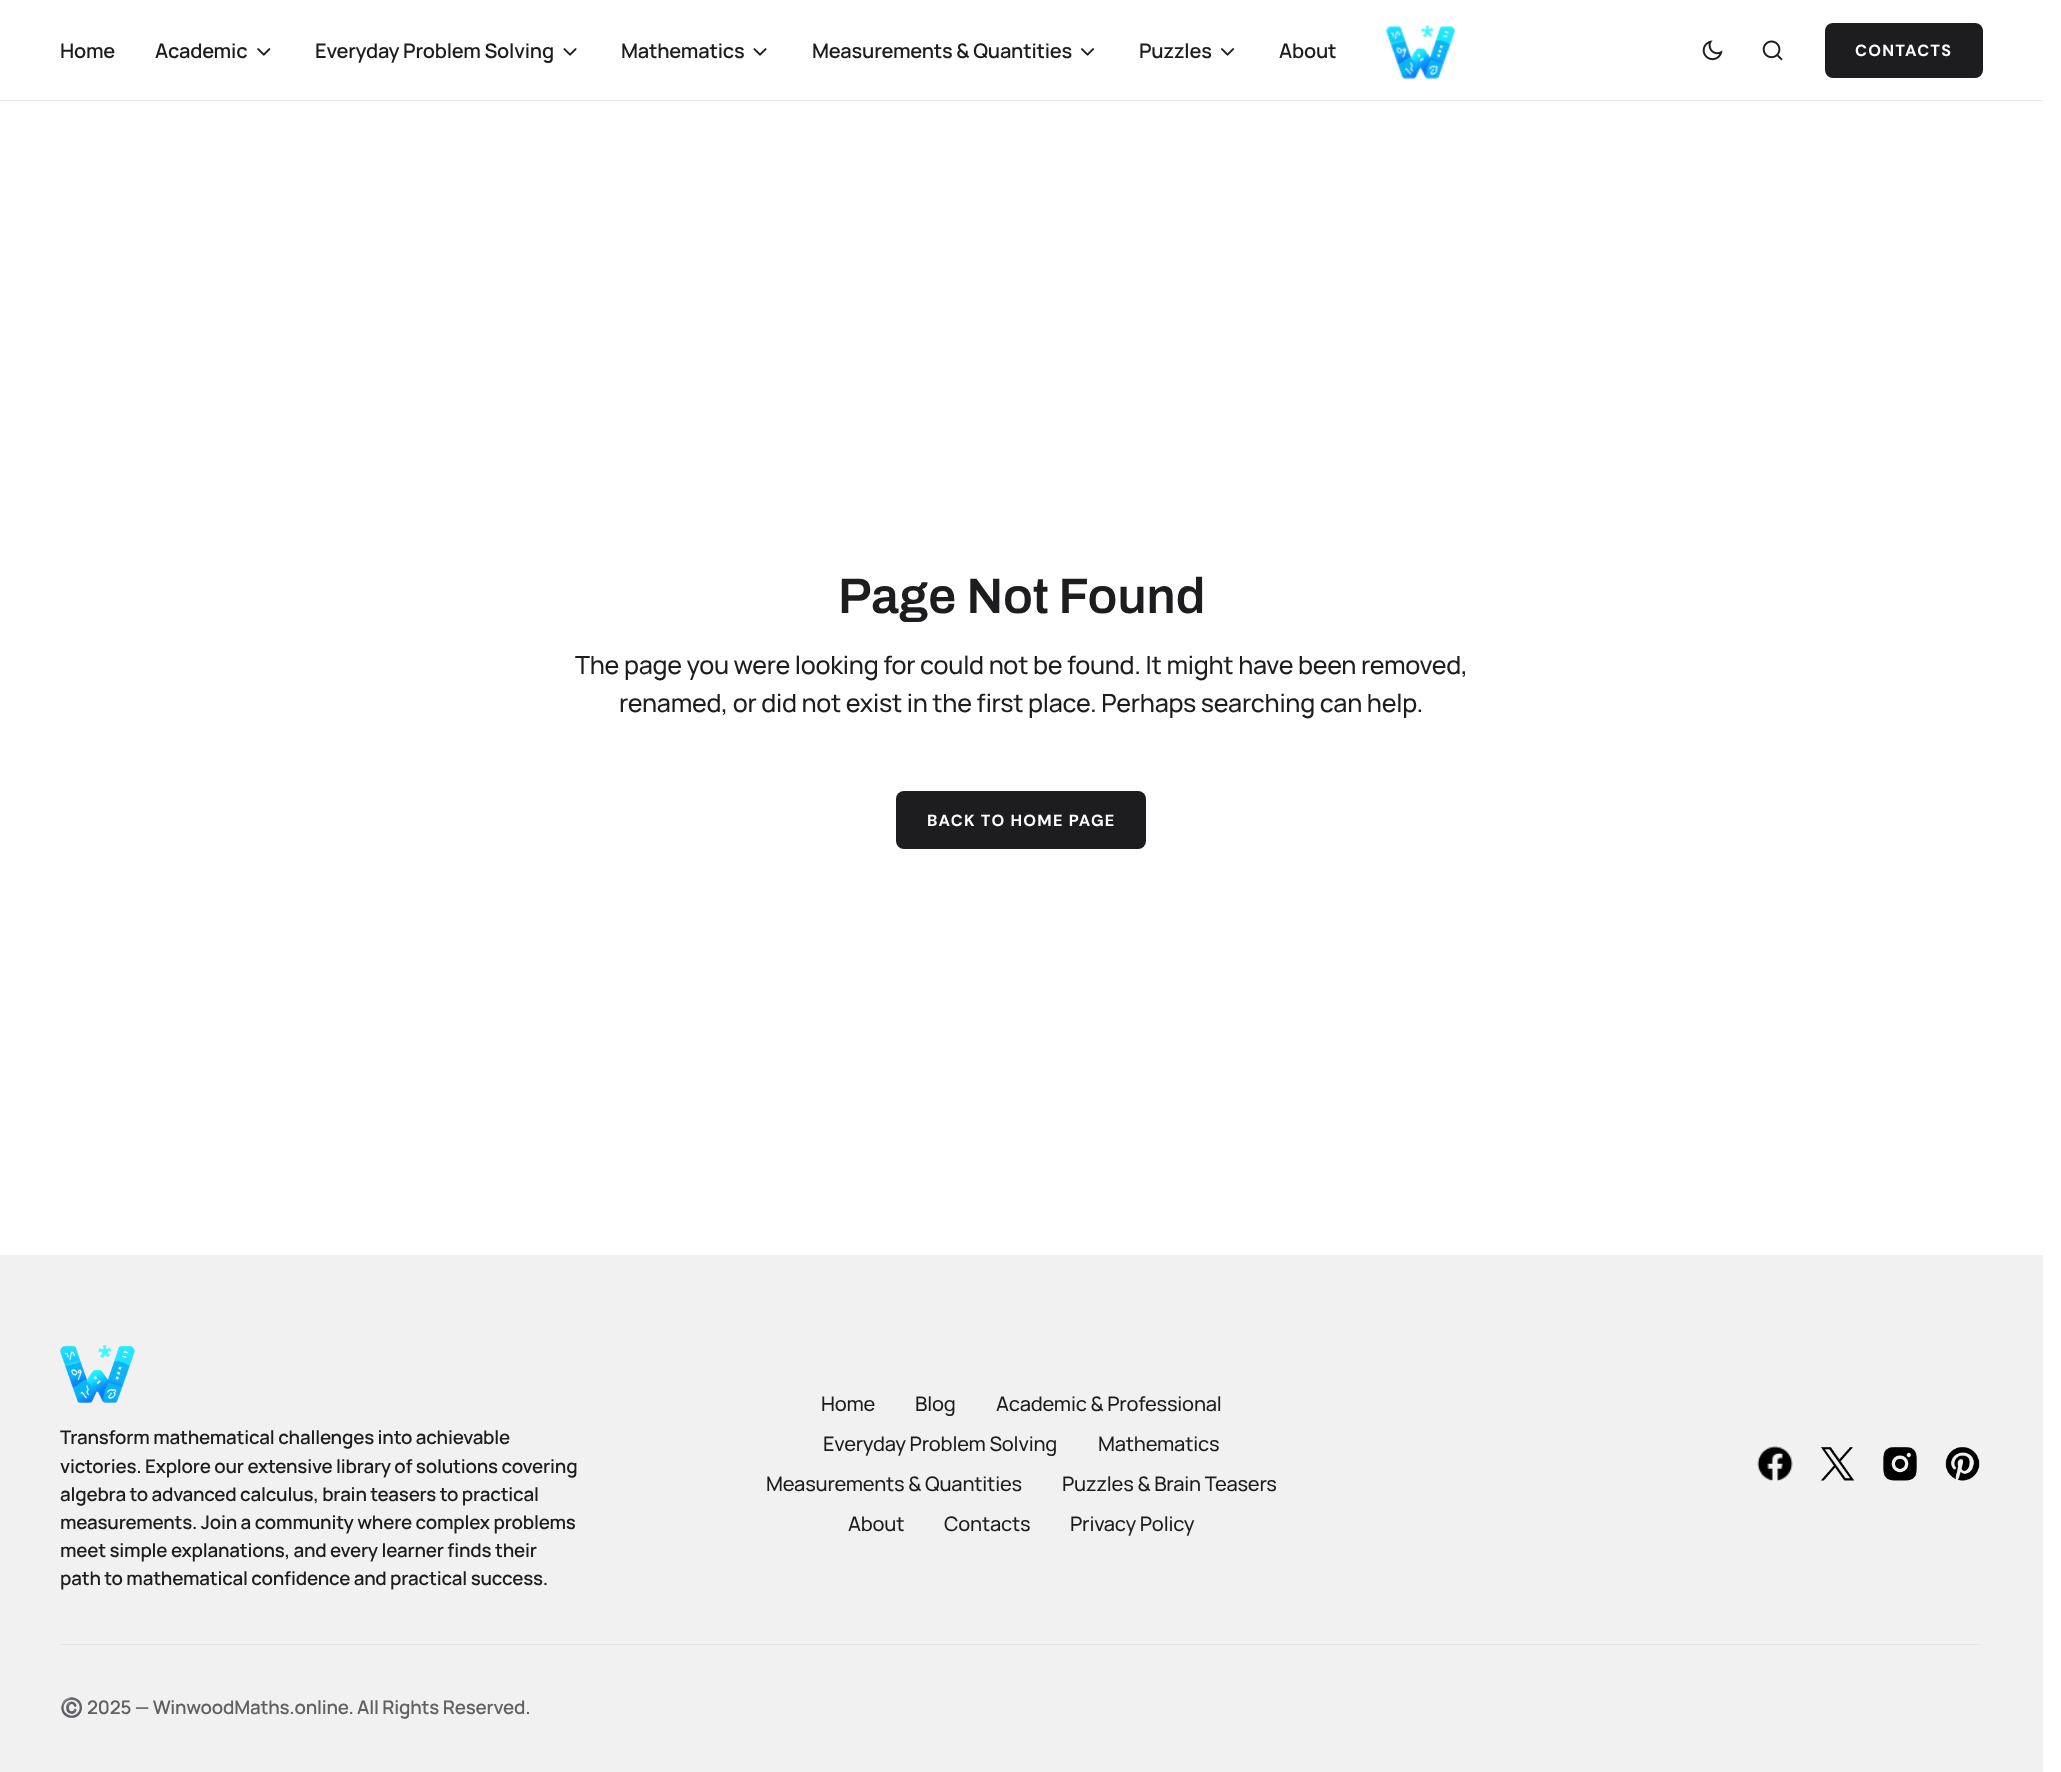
<svg xmlns="http://www.w3.org/2000/svg" width="2061" height="1772">
	<rect width="100%" height="100%" fill="#FFFFFF" />
	<g font-family="Manrope" font-size="20" font-weight="600" letter-spacing="-0.2" fill="#1D1D1F">
		<text x="60" y="58">Home</text>
		<text x="155" y="58">Academic</text>
	</g>
	<image x="257" y="48" width="14" height="8" href="assets/img1.png" />
	<text x="315" y="58" font-family="Manrope" font-size="20" font-weight="600" letter-spacing="-0.2" fill="#1D1D1F">Everyday Problem Solving</text>
	<image x="563" y="48" width="14" height="8" href="assets/img2.png" />
	<text x="621" y="58" font-family="Manrope" font-size="20" font-weight="600" letter-spacing="-0.2" fill="#1D1D1F">Mathematics</text>
	<image x="753" y="48" width="14" height="8" href="assets/img2.png" />
	<text x="812" y="58" font-family="Manrope" font-size="20" font-weight="600" letter-spacing="-0.2" fill="#1D1D1F">Measurements &amp; Quantities</text>
	<image x="1081" y="48" width="13" height="8" href="assets/img3.png" />
	<text x="1139" y="58" font-family="Manrope" font-size="20" font-weight="600" letter-spacing="-0.2" fill="#1D1D1F">Puzzles</text>
	<image x="1221" y="48" width="13" height="8" href="assets/img3.png" />
	<text x="1279" y="58" font-family="Manrope" font-size="20" font-weight="600" letter-spacing="-0.2" fill="#1D1D1F">About</text>
	<image x="1386" y="24" width="69" height="55" href="assets/img4.png" />
	<image x="1702" y="40" width="21" height="21" href="assets/img5.png" />
	<image x="1762" y="40" width="21" height="21" href="assets/img6.png" />
	<rect x="1825" y="23" width="158" height="55" rx="8" fill="#1D1D1F" />
	<text x="1855" y="56" font-family="DM Sans" font-size="16.25" font-weight="700" letter-spacing="1.25" fill="#FFFFFF">CONTACTS</text>
	<rect x="0" y="100" width="2043" height="1" fill="#E4E4E4" />
	<text x="838" y="613" font-family="Archivo" font-size="50" font-weight="600" fill="#1D1D1F">Page Not Found</text>
	<g font-family="Manrope" font-size="25" font-weight="500" letter-spacing="-0.25" fill="#1D1D1F">
		<text x="575" y="674">The page you were looking for could not be found. It might have been removed,</text>
		<text x="619" y="712">renamed, or did not exist in the first place. Perhaps searching can help.</text>
	</g>
	<rect x="896" y="791" width="250" height="58" rx="8" fill="#1D1D1F" />
	<text x="927" y="826" font-family="DM Sans" font-size="16.25" font-weight="700" letter-spacing="1.25" fill="#FFFFFF">BACK TO HOME PAGE</text>
	<rect x="0" y="1255" width="2043" height="517" fill="#F1F1F2" />
	<image x="60" y="1345" width="75" height="58" href="assets/img7.png" />
	<g font-family="Manrope" font-size="18.75" font-weight="600" letter-spacing="-0.2" fill="#1D1D1F">
		<text x="60" y="1444">Transform mathematical challenges into achievable</text>
		<text x="60" y="1473">victories. Explore our extensive library of solutions covering</text>
		<text x="60" y="1501">algebra to advanced calculus, brain teasers to practical</text>
		<text x="60" y="1529">measurements. Join a community where complex problems</text>
		<text x="60" y="1557">meet simple explanations, and every learner finds their</text>
		<text x="60" y="1585">path to mathematical confidence and practical success.</text>
	</g>
	<g font-family="Manrope" font-size="20" font-weight="500" letter-spacing="-0.2" fill="#1D1D1F">
		<text x="821" y="1411">Home</text>
		<text x="915" y="1411">Blog</text>
		<text x="996" y="1411">Academic &amp; Professional</text>
		<text x="823" y="1451">Everyday Problem Solving</text>
		<text x="1098" y="1451">Mathematics</text>
		<text x="766" y="1491">Measurements &amp; Quantities</text>
		<text x="1062" y="1491">Puzzles &amp; Brain Teasers</text>
		<text x="848" y="1531">About</text>
		<text x="944" y="1531">Contacts</text>
		<text x="1070" y="1531">Privacy Policy</text>
	</g>
	<image x="1757" y="1446" width="36" height="36" href="assets/img8.png" />
	<image x="1820" y="1447" width="35" height="34" href="assets/img9.png" />
	<image x="1883" y="1447" width="34" height="34" href="assets/img10.png" />
	<image x="1945" y="1447" width="35" height="34" href="assets/img11.png" />
	<rect x="60" y="1644" width="1923" height="1" fill="#E4E4E4" />
	<text x="60" y="1714" font-family="Noto Color Emoji" font-size="18.75" font-weight="700" letter-spacing="-0.2" fill="#616162">©️</text>
	<text x="87" y="1714" font-family="Manrope" font-size="18.75" font-weight="600" letter-spacing="-0.2" fill="#616162">2025 — WinwoodMaths.online. All Rights Reserved.</text>
</svg>
